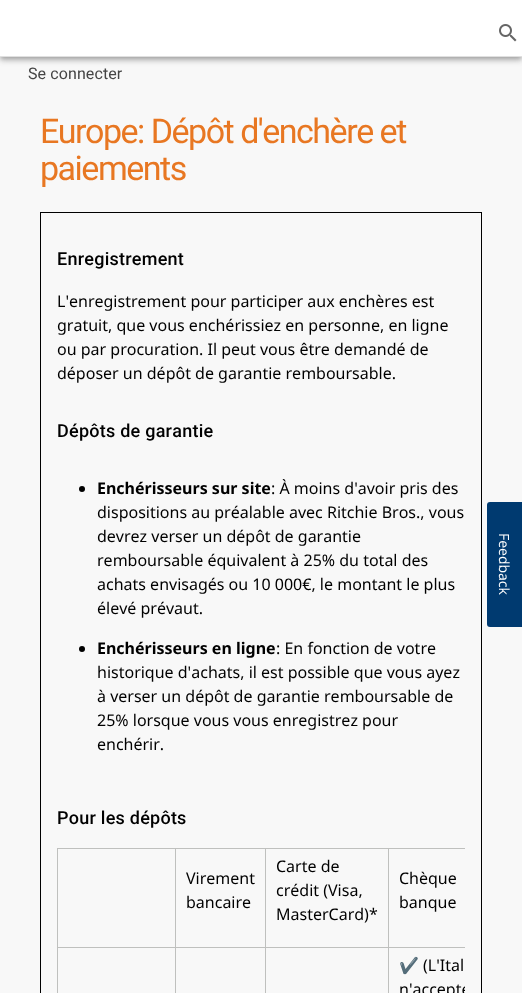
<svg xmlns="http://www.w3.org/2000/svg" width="522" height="993">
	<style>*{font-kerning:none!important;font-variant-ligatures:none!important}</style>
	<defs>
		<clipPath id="clip1"><rect x="57" y="848" width="408" height="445" /></clipPath>
	</defs>
	<rect width="100%" height="100%" fill="#F8F8F8" />
	<rect x="0" y="1" width="522" height="57" fill="#000000" fill-opacity="0.12" filter="blur(5px)" />
	<rect x="0" y="4" width="522" height="57" fill="#000000" fill-opacity="0.14" filter="blur(2.5px)" />
	<rect x="1" y="3" width="520" height="55" fill="#000000" fill-opacity="0.2" filter="blur(2px)" />
	<rect x="0" y="0" width="522" height="56" fill="#FFFFFF" />
	<rect x="0" y="56" width="522" height="1" fill="#E0E0E0" />
	<image x="499" y="24" width="18" height="18" href="assets/img1.png" />
	<text x="28" y="79" font-family="Roboto" font-size="16" letter-spacing="0.1" fill="#454545">Se connecter</text>
	<g font-family="Roboto" font-size="34" letter-spacing="-1.5" fill="#E87722">
		<text x="40" y="143">Europe: Dépôt d'enchère et</text>
		<text x="40" y="180">paiements</text>
	</g>
	<rect x="40.5" y="212.5" width="441" height="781" fill="none" stroke="#000000" />
	<text x="57" y="265" font-family="Roboto" font-size="18" font-weight="500" letter-spacing="0.25" fill="#000000">Enregistrement</text>
	<g font-family="Noto Sans" font-size="16" fill="#000000">
		<text x="57" y="307">L'enregistrement pour participer aux enchères est</text>
		<text x="57" y="331">gratuit, que vous enchérissiez en personne, en ligne</text>
		<text x="57" y="355">ou par procuration. Il peut vous être demandé de</text>
		<text x="57" y="379">déposer un dépôt de garantie remboursable.</text>
	</g>
	<text x="57" y="437" font-family="Roboto" font-size="18" font-weight="500" letter-spacing="0.25" fill="#000000">Dépôts de garantie</text>
	<circle cx="82" cy="489" r="3" fill="#000000" />
	<text x="97" y="494" font-family="Noto Sans" font-size="16" font-weight="700" fill="#000000">Enchérisseurs sur site</text>
	<g font-family="Noto Sans" font-size="16" fill="#000000">
		<text x="271" y="494">: À moins d'avoir pris des</text>
		<text x="97" y="518">dispositions au préalable avec Ritchie Bros., vous</text>
		<text x="97" y="542">devrez verser un dépôt de garantie</text>
		<text x="97" y="566">remboursable équivalent à 25% du total des</text>
		<text x="97" y="590">achats envisagés ou 10 000€, le montant le plus</text>
		<text x="97" y="614">élevé prévaut.</text>
	</g>
	<circle cx="82" cy="649" r="3" fill="#000000" />
	<text x="97" y="654" font-family="Noto Sans" font-size="16" font-weight="700" fill="#000000">Enchérisseurs en ligne</text>
	<g font-family="Noto Sans" font-size="16" fill="#000000">
		<text x="276" y="654">: En fonction de votre</text>
		<text x="97" y="678">historique d'achats, il est possible que vous ayez</text>
		<text x="97" y="702">à verser un dépôt de garantie remboursable de</text>
		<text x="97" y="726">25% lorsque vous vous enregistrez pour</text>
		<text x="97" y="750">enchérir.</text>
	</g>
	<text x="57" y="824" font-family="Roboto" font-size="18" font-weight="500" letter-spacing="0.25" fill="#000000">Pour les dépôts</text>
	<rect x="388" y="848" width="77" height="1" fill="#BFC0BE" />
	<rect x="388" y="947" width="77" height="1" fill="#BFC0BE" />
	<rect x="388" y="947" width="1" height="46" fill="#BFC0BE" />
	<rect x="265" y="947" width="124" height="1" fill="#BFC0BE" />
	<rect x="388" y="848" width="1" height="100" fill="#BFC0BE" />
	<rect x="265" y="848" width="124" height="1" fill="#BFC0BE" />
	<rect x="265" y="947" width="1" height="46" fill="#BFC0BE" />
	<rect x="175" y="947" width="91" height="1" fill="#BFC0BE" />
	<rect x="265" y="848" width="1" height="100" fill="#BFC0BE" />
	<rect x="175" y="848" width="91" height="1" fill="#BFC0BE" />
	<rect x="175" y="947" width="1" height="46" fill="#BFC0BE" />
	<rect x="57" y="947" width="119" height="1" fill="#BFC0BE" />
	<rect x="175" y="848" width="1" height="100" fill="#BFC0BE" />
	<rect x="57" y="848" width="119" height="1" fill="#BFC0BE" />
	<rect x="57" y="947" width="1" height="46" fill="#BFC0BE" />
	<rect x="57" y="848" width="1" height="100" fill="#BFC0BE" />
	<g font-family="Noto Sans" font-size="16" fill="#000000">
		<text x="186" y="884">Virement</text>
		<text x="186" y="908">bancaire</text>
		<text x="276" y="872">Carte de</text>
		<text x="276" y="896">crédit (Visa,</text>
		<text x="276" y="920">MasterCard)*</text>
		<text x="399" y="884">Chèque</text>
		<text x="399" y="908">banque</text>
	</g>
	<text x="399" y="971" font-family="Noto Color Emoji" font-size="16" fill="#000000">✔</text>
	<text x="423" y="971" font-family="Noto Sans" font-size="16" fill="#000000">(L'Ital</text>
	<g clip-path="url(#clip1)">
		<text x="399" y="995" font-family="Noto Sans" font-size="16" fill="#000000">n'accepte</text>
	</g>
	<path d="M522 502V627H490C488 627 487 626 487 624V505C487 503 488 502 490 502Z" fill="#003A70" />
	<text x="499" y="533" transform="rotate(90 499 533)" font-family="Open Sans" font-size="14" fill="#FFFFFF">Feedback</text>
</svg>
